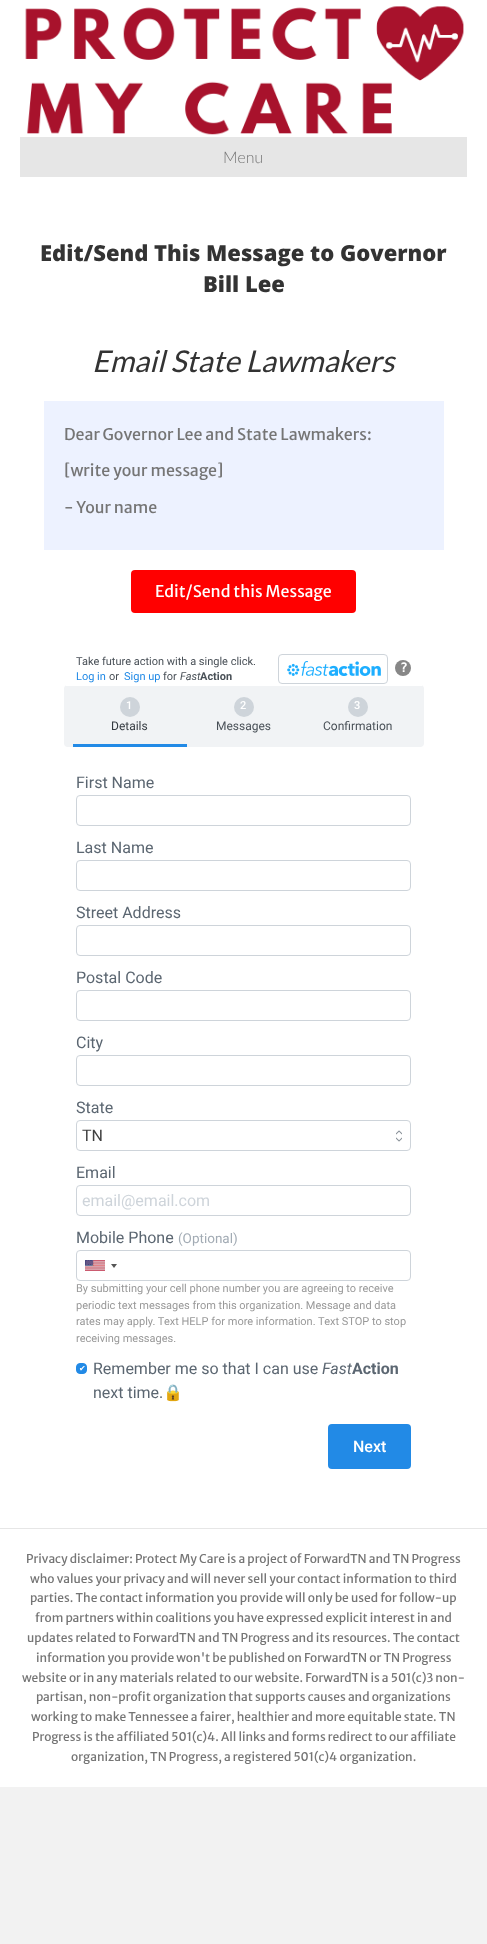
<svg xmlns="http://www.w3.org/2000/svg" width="487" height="1944">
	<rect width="100%" height="100%" fill="#F2F2F2" />
	<rect x="0" y="0" width="487" height="1528" fill="#FFFFFF" />
	<image x="25" y="6" width="439" height="129" href="assets/img1.png" />
	<rect x="20" y="137" width="447" height="40" fill="#E6E6E6" />
	<text x="223" y="163" font-family="Lato" font-size="16" font-weight="300" fill="#757575">Menu</text>
	<g font-family="Open Sans" font-size="22" font-weight="800" fill="#333333">
		<text x="40" y="261">Edit/Send This Message to Governor</text>
		<text x="203" y="292">Bill Lee</text>
	</g>
	<text x="92" y="372" font-family="Lato" font-size="30" font-style="italic" fill="#333333">Email State Lawmakers</text>
	<rect x="44" y="401" width="400" height="149" fill="#EDF2FF" />
	<g font-family="Merriweather Sans" font-size="16" fill="#757575">
		<text x="64" y="440">Dear Governor Lee and State Lawmakers:</text>
		<text x="64" y="476">[write your message]</text>
		<text x="64" y="513">- Your name</text>
	</g>
	<rect x="131" y="570" width="225" height="43" rx="4" fill="#FF0000" />
	<text x="155" y="597" font-family="Merriweather Sans" font-size="16" fill="#FFFFFF">Edit/Send this Message</text>
	<rect x="64" y="685" width="360" height="62" rx="4" fill="#F1F3F5" />
	<rect x="66" y="685" width="356" height="1" fill="#FFFFFF" />
	<text x="76" y="665" font-family="Roboto" font-size="11" fill="#495057">Take future action with a single click.</text>
	<text x="76" y="680" font-family="Roboto" font-size="11" fill="#228AE6">Log in</text>
	<text x="109" y="680" font-family="Roboto" font-size="11" fill="#495057">or</text>
	<text x="124" y="680" font-family="Roboto" font-size="11" fill="#228AE6">Sign up</text>
	<text x="163" y="680" font-family="Roboto" font-size="11" fill="#495057">for</text>
	<text x="180" y="680" font-family="Roboto" font-size="11" font-style="italic" fill="#495057">Fast</text>
	<text x="200" y="680" font-family="Roboto" font-size="11" font-weight="700" fill="#495057">Action</text>
	<rect x="278.5" y="654.5" width="109" height="29" rx="3.5" fill="none" stroke="#CED4DA" />
	<image x="287" y="661" width="94" height="15" href="assets/img2.png" />
	<circle cx="403" cy="668" r="8" fill="#878787" />
	<text x="400" y="672" font-family="DejaVu Sans Mono" font-size="13" font-weight="700" fill="#FFFFFF">?</text>
	<rect x="73" y="744" width="114" height="3" fill="#228AE6" />
	<circle cx="130" cy="707" r="10" fill="#CED4DA" />
	<text x="126" y="709" font-family="Roboto" font-size="11" font-weight="500" fill="#FFFFFF">1</text>
	<text x="111" y="730" font-family="Roboto" font-size="12" fill="#343A40">Details</text>
	<circle cx="244" cy="707" r="10" fill="#CED4DA" />
	<text x="240" y="709" font-family="Roboto" font-size="11" font-weight="500" fill="#FFFFFF">2</text>
	<text x="216" y="730" font-family="Roboto" font-size="12" fill="#495057">Messages</text>
	<circle cx="358" cy="707" r="10" fill="#CED4DA" />
	<text x="354" y="709" font-family="Roboto" font-size="11" font-weight="500" fill="#FFFFFF">3</text>
	<text x="323" y="730" font-family="Roboto" font-size="12" fill="#495057">Confirmation</text>
	<text x="76" y="788" font-family="Roboto" font-size="16" fill="#5B6671">First Name</text>
	<rect x="76.5" y="795.5" width="334" height="30" rx="3.5" fill="none" stroke="#CED4DA" />
	<text x="76" y="853" font-family="Roboto" font-size="16" fill="#5B6671">Last Name</text>
	<rect x="76.5" y="860.5" width="334" height="30" rx="3.5" fill="none" stroke="#CED4DA" />
	<text x="76" y="918" font-family="Roboto" font-size="16" fill="#5B6671">Street Address</text>
	<rect x="76.5" y="925.5" width="334" height="30" rx="3.5" fill="none" stroke="#CED4DA" />
	<text x="76" y="983" font-family="Roboto" font-size="16" fill="#5B6671">Postal Code</text>
	<rect x="76.5" y="990.5" width="334" height="30" rx="3.5" fill="none" stroke="#CED4DA" />
	<text x="76" y="1048" font-family="Roboto" font-size="16" fill="#5B6671">City</text>
	<rect x="76.5" y="1055.5" width="334" height="30" rx="3.5" fill="none" stroke="#CED4DA" />
	<text x="76" y="1113" font-family="Roboto" font-size="16" fill="#5B6671">State</text>
	<image x="396" y="1130" width="6" height="12" href="assets/img3.png" />
	<rect x="76.5" y="1120.5" width="334" height="30" rx="3.5" fill="none" stroke="#CED4DA" />
	<text x="82" y="1141" font-family="Roboto" font-size="16" fill="#404040">TN</text>
	<text x="76" y="1178" font-family="Roboto" font-size="16" fill="#5B6671">Email</text>
	<rect x="76.5" y="1185.5" width="334" height="30" rx="3.5" fill="none" stroke="#CED4DA" />
	<text x="82" y="1206" font-family="Roboto" font-size="16" fill="#CED4DA">email@email.com</text>
	<text x="76" y="1243" font-family="Roboto" font-size="16" fill="#5B6671">Mobile Phone</text>
	<text x="178" y="1243" font-family="Roboto" font-size="13.5" fill="#A2ABB4">(Optional)</text>
	<rect x="76.5" y="1250.5" width="334" height="30" rx="3.5" fill="none" stroke="#CED4DA" />
	<rect x="85" y="1260" width="20" height="11" fill="#888888" filter="blur(0.5px)" />
	<image x="85" y="1260" width="20" height="11" href="assets/img4.png" />
	<path d="M111 1264H117L114 1268Z" fill="#555555" />
	<g font-family="Roboto" font-size="11" fill="#999999">
		<text x="76" y="1292">By submitting your cell phone number you are agreeing to receive</text>
		<text x="76" y="1309">periodic text messages from this organization. Message and data</text>
		<text x="76" y="1325">rates may apply. Text HELP for more information. Text STOP to stop</text>
		<text x="76" y="1342">receiving messages.</text>
	</g>
	<rect x="76.5" y="1363.5" width="10" height="10" rx="3.5" fill="#228AE6" stroke="#228AE6" />
	<text x="93" y="1374" font-family="Roboto" font-size="16" fill="#5B6671">Remember me so that I can use</text>
	<text x="322" y="1374" font-family="Roboto" font-size="16" font-style="italic" fill="#5B6671">Fast</text>
	<text x="352" y="1374" font-family="Roboto" font-size="16" font-weight="700" fill="#5B6671">Action</text>
	<text x="79" y="1371" font-family="DejaVu Sans" font-size="8" fill="#FFFFFF">✔</text>
	<text x="93" y="1398" font-family="Roboto" font-size="16" fill="#5B6671">next time.</text>
	<text x="163" y="1398" font-family="Noto Color Emoji" font-size="16" fill="#5B6671">🔒</text>
	<rect x="328" y="1424" width="83" height="45" rx="4" fill="#228AE6" />
	<text x="353" y="1452" font-family="Roboto" font-size="16" font-weight="500" fill="#FFFFFF">Next</text>
	<rect x="0" y="1529" width="487" height="258" fill="#FFFFFF" />
	<rect x="0" y="1528" width="487" height="1" fill="#E6E6E6" />
	<g font-family="Merriweather Sans" font-size="12" fill="#757575">
		<text x="26" y="1563">Privacy disclaimer: Protect My Care is a project of ForwardTN and TN Progress</text>
		<text x="30" y="1583">who values your privacy and will never sell your contact information to third</text>
		<text x="30" y="1602">parties. The contact information you provide will only be used for follow-up</text>
		<text x="35" y="1622">from partners within coalitions you have expressed explicit interest in and</text>
		<text x="27" y="1642">updates related to ForwardTN and TN Progress and its resources. The contact</text>
		<text x="36" y="1662">information you provide won't be published on ForwardTN or TN Progress</text>
		<text x="22" y="1682">website or in any materials related to our website. ForwardTN is a 501(c)3 non-</text>
		<text x="36" y="1701">partisan, non-profit organization that supports causes and organizations</text>
		<text x="31" y="1721">working to make Tennessee a fairer, healthier and more equitable state. TN</text>
		<text x="32" y="1741">Progress is the affiliated 501(c)4. All links and forms redirect to our affiliate</text>
		<text x="71" y="1761">organization, TN Progress, a registered 501(c)4 organization.</text>
	</g>
</svg>
